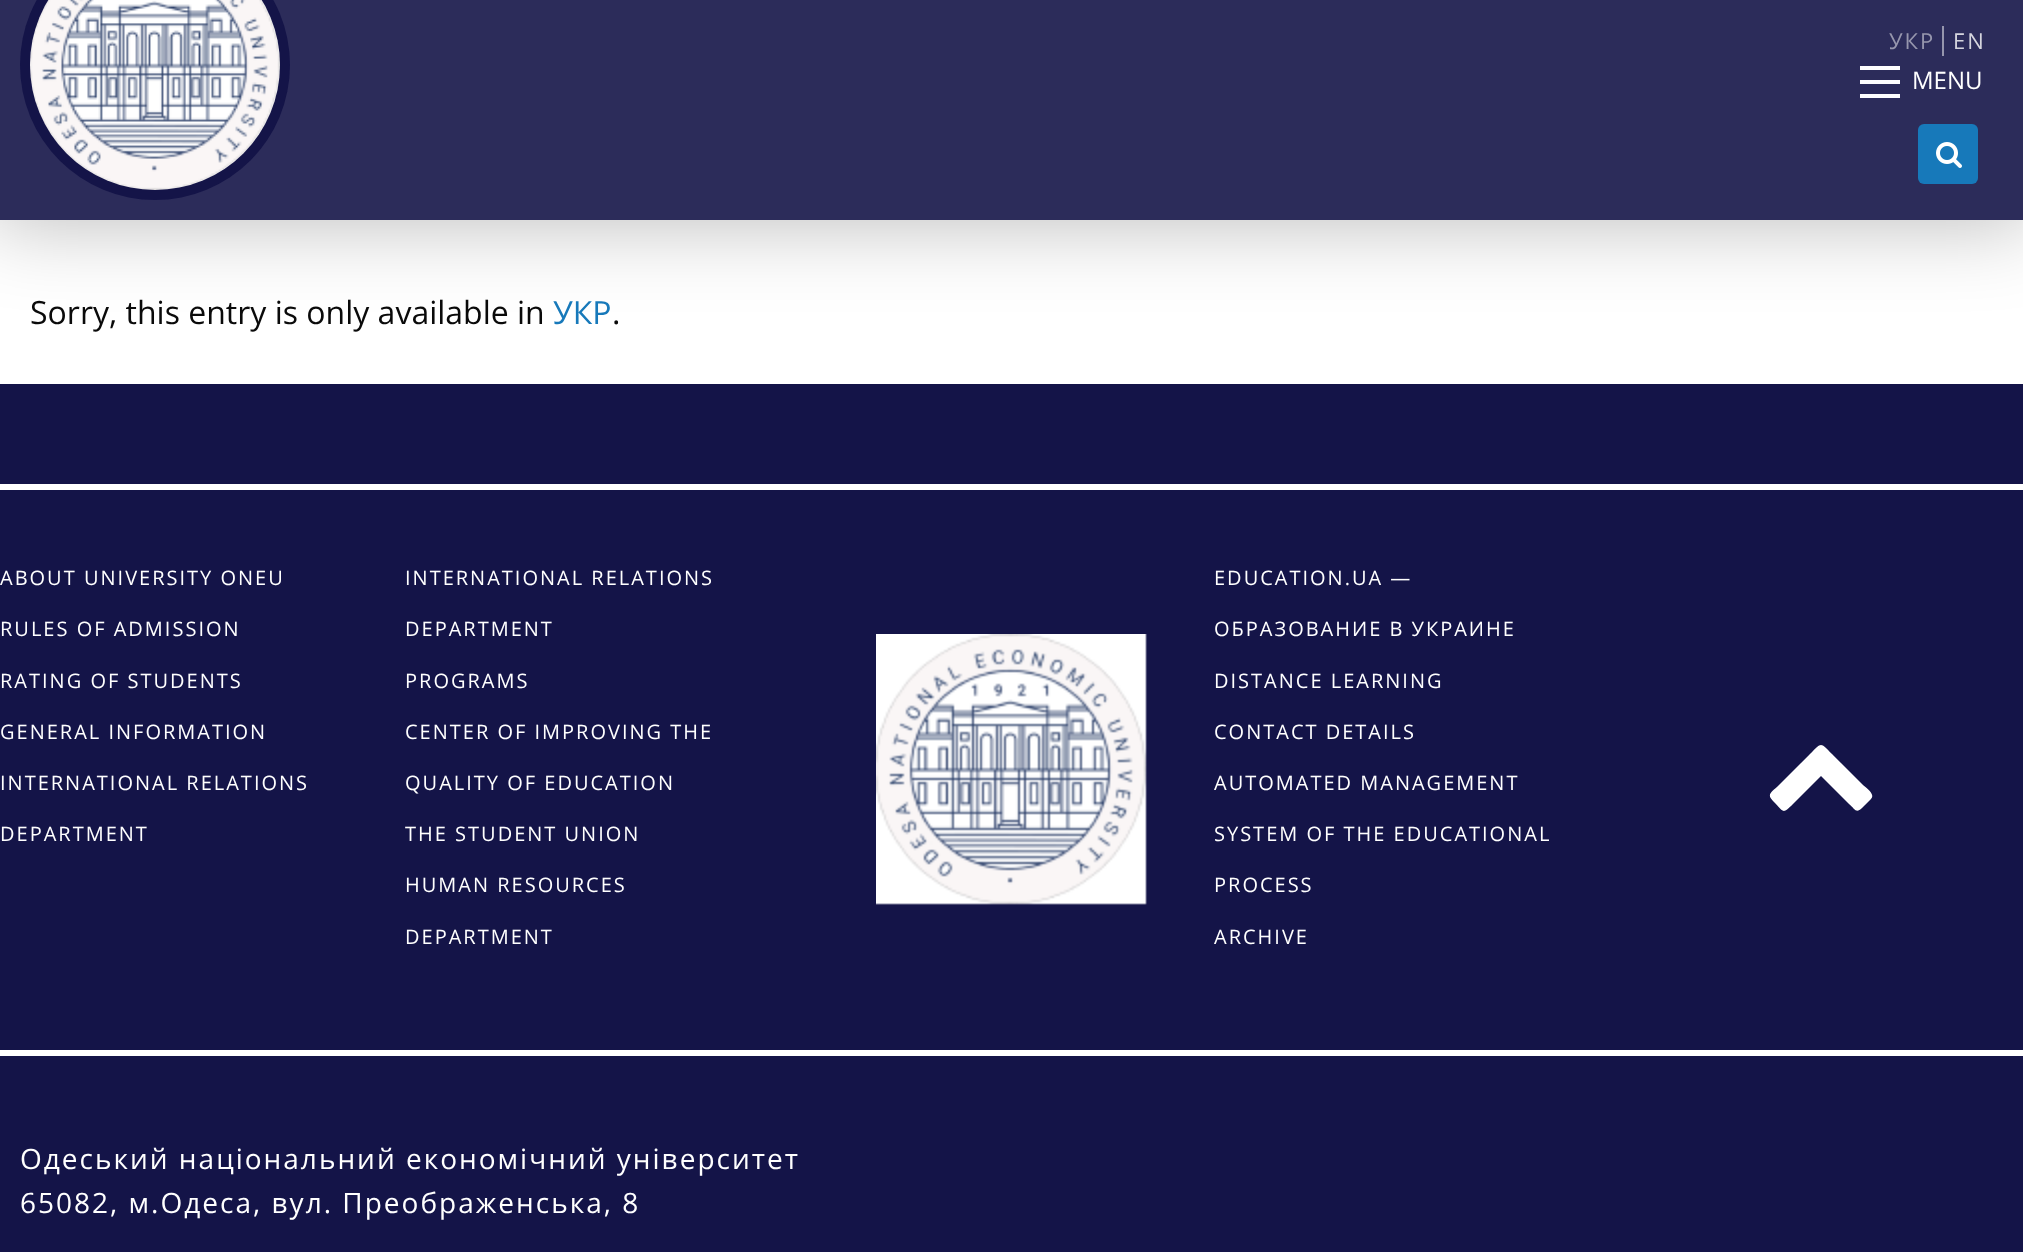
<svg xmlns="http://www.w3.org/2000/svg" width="2023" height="1252">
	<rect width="100%" height="100%" fill="#FFFFFF" />
	<rect x="-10" y="-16" width="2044" height="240" fill="#000000" fill-opacity="0.26" filter="blur(41px)" />
	<rect x="0" y="0" width="2023" height="220" fill="#2C2C5A" />
	<circle cx="155" cy="65" r="135" fill="#141448" />
	<image x="30" y="0" width="250" height="190" href="assets/img1.png" />
	<text x="1889" y="49" font-family="Open Sans" font-size="22" letter-spacing="2" fill="#9696AD">УКР</text>
	<rect x="1942" y="26" width="2" height="30" fill="#9696AD" />
	<text x="1953" y="49" font-family="Open Sans" font-size="22" letter-spacing="2" fill="#D5D5DE">EN</text>
	<rect x="1860" y="94" width="40" height="4" fill="#FEFEFE" />
	<rect x="1860" y="80" width="40" height="4" fill="#FEFEFE" />
	<rect x="1860" y="66" width="40" height="4" fill="#FEFEFE" />
	<text x="1912" y="89" font-family="Open Sans" font-size="24" fill="#FFFFFF">MENU</text>
	<rect x="1918" y="124" width="60" height="60" rx="6" fill="#1779BA" />
	<image x="1936" y="142" width="26" height="26" href="assets/img2.png" />
	<text x="30" y="324" font-family="Open Sans" font-size="32" fill="#0A0A0A">Sorry, this entry is only available in</text>
	<text x="553" y="324" font-family="Open Sans" font-size="32" fill="#1779BA">УКР</text>
	<text x="612" y="324" font-family="Open Sans" font-size="32" fill="#0A0A0A">.</text>
	<rect x="0" y="384" width="2023" height="868" fill="#141448" />
	<rect x="0" y="484" width="2023" height="6" fill="#FFFFFF" />
	<rect x="0" y="1050" width="2023" height="6" fill="#FFFFFF" />
	<g font-family="Open Sans" font-size="20" letter-spacing="2" fill="#FFFFFF">
		<text x="0" y="585">ABOUT UNIVERSITY ONEU</text>
		<text x="0" y="636">RULES OF ADMISSION</text>
		<text x="0" y="688">RATING OF STUDENTS</text>
		<text x="0" y="739">GENERAL INFORMATION</text>
		<text x="0" y="790">INTERNATIONAL RELATIONS</text>
		<text x="0" y="841">DEPARTMENT</text>
		<text x="405" y="585">INTERNATIONAL RELATIONS</text>
		<text x="405" y="636">DEPARTMENT</text>
		<text x="405" y="688">PROGRAMS</text>
		<text x="405" y="739">CENTER OF IMPROVING THE</text>
		<text x="405" y="790">QUALITY OF EDUCATION</text>
		<text x="405" y="841">THE STUDENT UNION</text>
		<text x="405" y="892">HUMAN RESOURCES</text>
		<text x="405" y="944">DEPARTMENT</text>
	</g>
	<image x="876" y="634" width="271" height="271" href="assets/img3.png" />
	<g font-family="Open Sans" font-size="20" letter-spacing="2" fill="#FFFFFF">
		<text x="1214" y="585">EDUCATION.UA —</text>
		<text x="1214" y="636">ОБРАЗОВАНИЕ В УКРАИНЕ</text>
		<text x="1214" y="688">DISTANCE LEARNING</text>
		<text x="1214" y="739">CONTACT DETAILS</text>
		<text x="1214" y="790">AUTOMATED MANAGEMENT</text>
		<text x="1214" y="841">SYSTEM OF THE EDUCATIONAL</text>
		<text x="1214" y="892">PROCESS</text>
		<text x="1214" y="944">ARCHIVE</text>
	</g>
	<path d="M1871 799L1862 808C1856 814 1855 809 1849 804L1821 776L1793 804C1782 815 1784 812 1773 801C1766 794 1772 792 1779 785L1810 754C1822 742 1820 742 1832 754L1863 785C1865 787 1876 794 1871 799Z" fill="#FFFFFF" />
	<g font-family="Open Sans" font-size="28" letter-spacing="2" fill="#FFFFFF">
		<text x="20" y="1169">Одеський національний економічний університет</text>
		<text x="20" y="1213">65082, м.Одеса, вул. Преображенська, 8</text>
	</g>
</svg>
